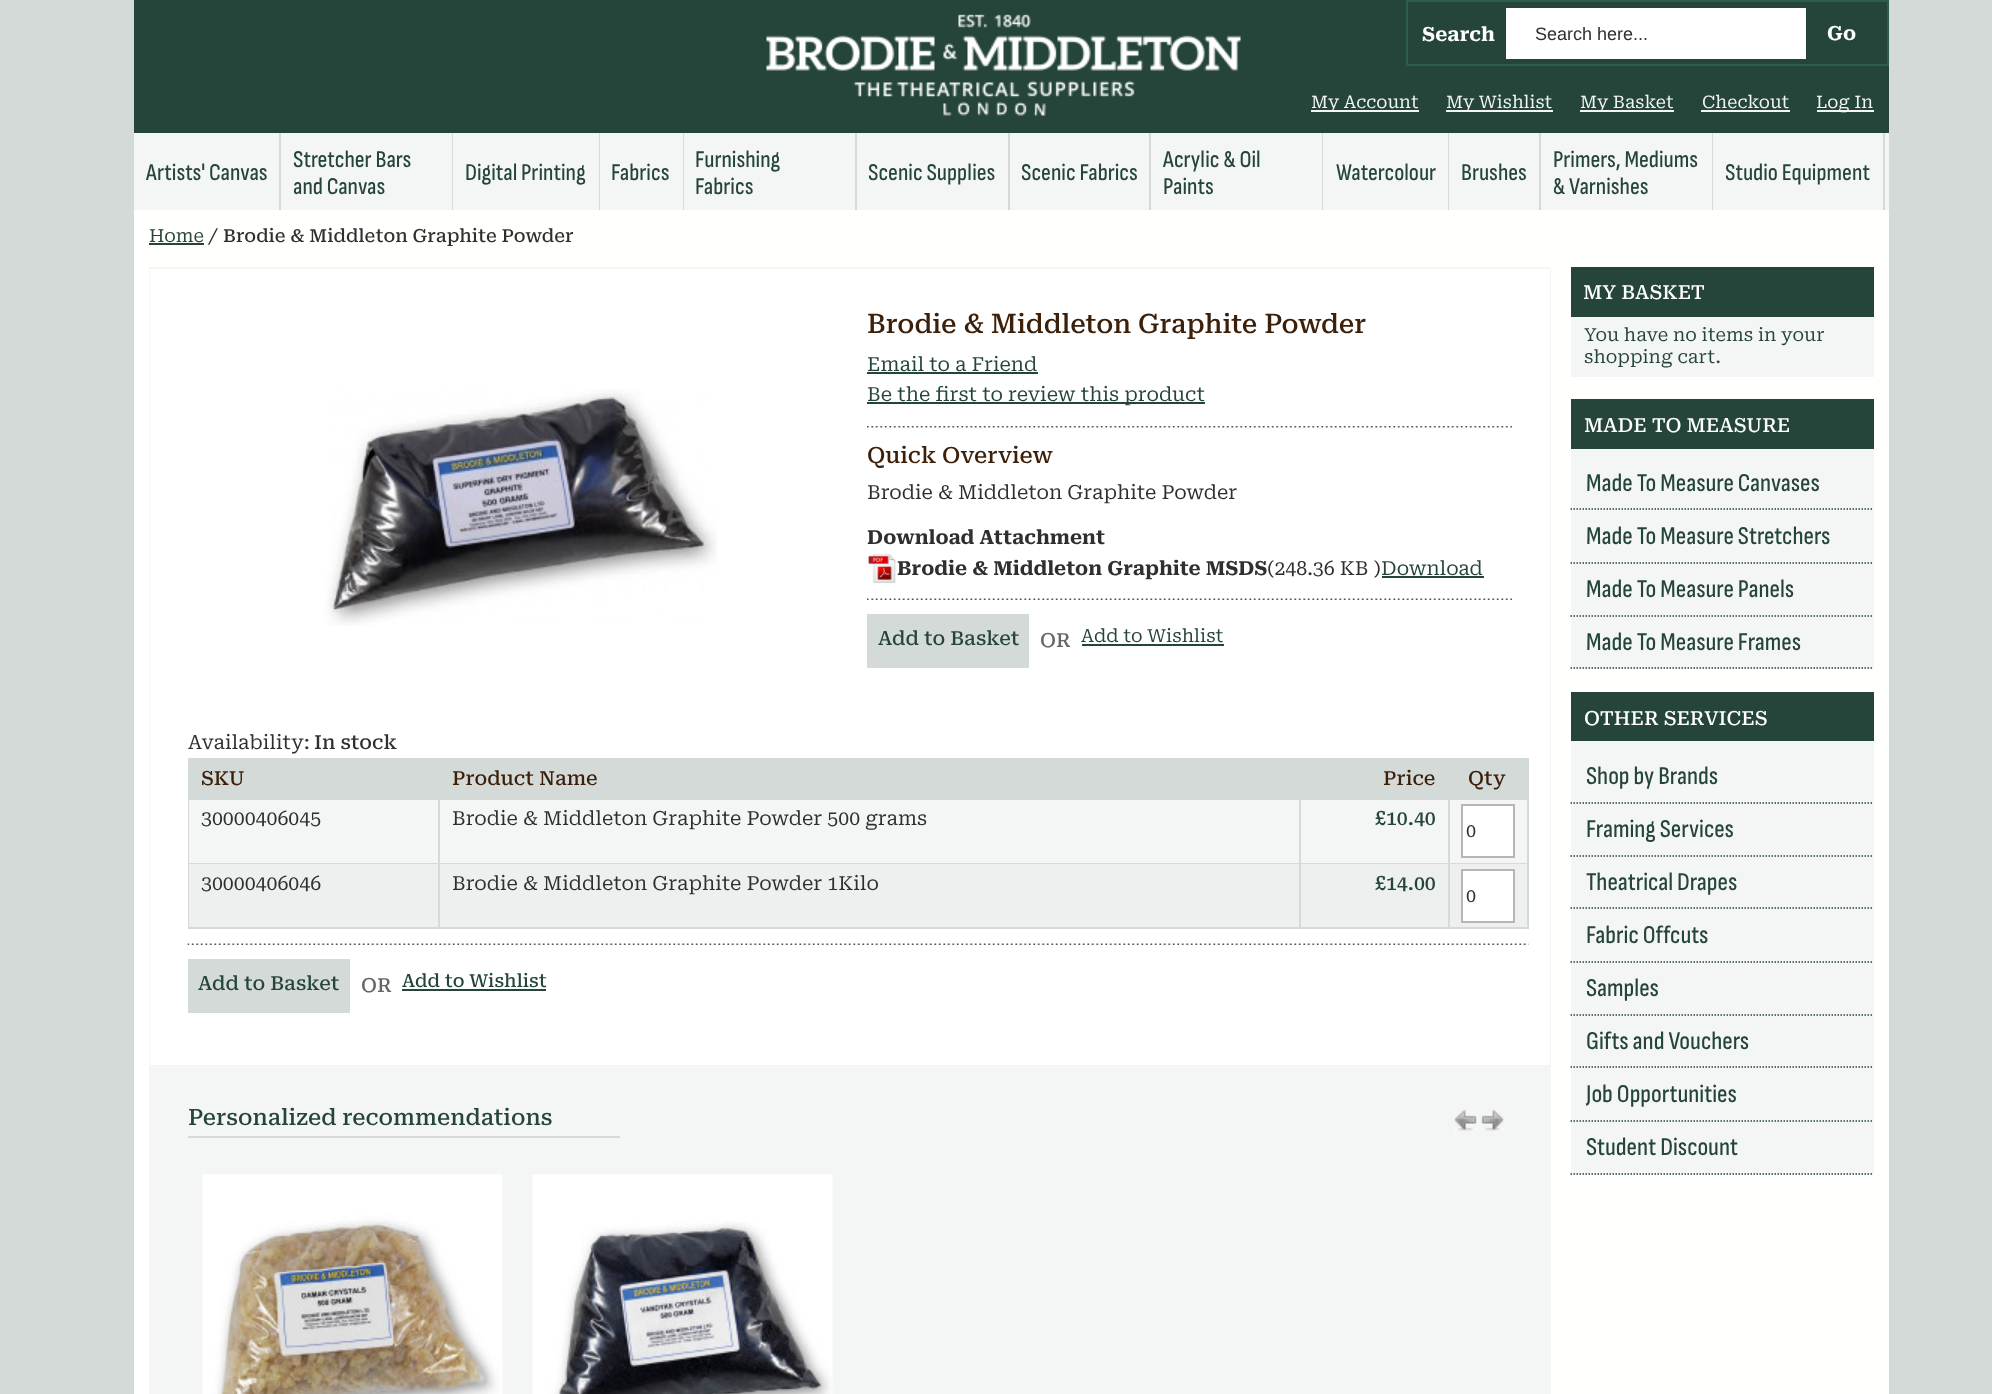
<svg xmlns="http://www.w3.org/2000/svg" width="1992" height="1394">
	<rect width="100%" height="100%" fill="#D4DAD8" />
	<rect x="134" y="133" width="1755" height="77" fill="#F4F6F5" />
	<rect x="279" y="132" width="2" height="78" fill="#D4DAD8" />
	<rect x="452" y="132" width="1" height="78" fill="#D4DAD8" />
	<rect x="599" y="132" width="1" height="78" fill="#D4DAD8" />
	<rect x="683" y="132" width="1" height="78" fill="#D4DAD8" />
	<rect x="855" y="132" width="2" height="78" fill="#D4DAD8" />
	<rect x="1008" y="132" width="2" height="78" fill="#D4DAD8" />
	<rect x="1149" y="132" width="2" height="78" fill="#D4DAD8" />
	<rect x="1322" y="132" width="1" height="78" fill="#D4DAD8" />
	<rect x="1448" y="132" width="1" height="78" fill="#D4DAD8" />
	<rect x="1539" y="132" width="2" height="78" fill="#D4DAD8" />
	<rect x="1712" y="132" width="1" height="78" fill="#D4DAD8" />
	<rect x="1883" y="132" width="2" height="78" fill="#D4DAD8" />
	<rect x="134" y="0" width="1755" height="133" fill="#25453A" />
	<image x="766" y="14" width="475" height="102" href="assets/img1.png" />
	<rect x="1407" y="1" width="481" height="64" fill="none" stroke="#2C5D4C" stroke-width="2" />
	<text x="1422" y="41" font-family="Roboto Serif" font-size="19.5" font-weight="700" fill="#FFFFFF">Search</text>
	<rect x="1506" y="8" width="300" height="51" fill="#FFFFFF" />
	<text x="1535" y="40" font-family="Liberation Sans" font-size="18" fill="#2F2F2F">Search here...</text>
	<text x="1827" y="40" font-family="Roboto Serif" font-size="19.5" font-weight="700" fill="#FFFFFF">Go</text>
	<rect x="1311" y="110" width="108" height="2" fill="#F4F6F5" />
	<text x="1311" y="108" font-family="'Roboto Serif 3'" font-size="17.25" fill="#F4F6F5">My Account</text>
	<rect x="1446" y="110" width="107" height="2" fill="#F4F6F5" />
	<text x="1446" y="108" font-family="'Roboto Serif 3'" font-size="17.25" fill="#F4F6F5">My Wishlist</text>
	<rect x="1580" y="110" width="94" height="2" fill="#F4F6F5" />
	<g font-family="'Roboto Serif 3'" font-size="17.25" fill="#F4F6F5">
		<text x="1580" y="108">My Basket</text>
		<text x="1702" y="108">Checkout</text>
	</g>
	<rect x="1701" y="110" width="89" height="2" fill="#F4F6F5" />
	<rect x="1817" y="110" width="57" height="2" fill="#F4F6F5" />
	<text x="1816" y="108" font-family="'Roboto Serif 3'" font-size="17.25" fill="#F4F6F5">Log In</text>
	<g font-family="Sofia Sans Condensed" font-size="24" font-weight="500" fill="#25453A">
		<text x="146" y="180">Artists' Canvas</text>
		<text x="293" y="167">Stretcher Bars</text>
		<text x="293" y="194">and Canvas</text>
		<text x="465" y="180">Digital Printing</text>
		<text x="611" y="180">Fabrics</text>
		<text x="695" y="167">Furnishing</text>
		<text x="695" y="194">Fabrics</text>
		<text x="868" y="180">Scenic Supplies</text>
		<text x="1021" y="180">Scenic Fabrics</text>
		<text x="1163" y="167">Acrylic &amp; Oil</text>
		<text x="1163" y="194">Paints</text>
		<text x="1336" y="180">Watercolour</text>
		<text x="1461" y="180">Brushes</text>
		<text x="1553" y="167">Primers, Mediums</text>
		<text x="1553" y="194">&amp; Varnishes</text>
		<text x="1725" y="180">Studio Equipment</text>
	</g>
	<rect x="134" y="210" width="1755" height="1184" fill="#FFFFFE" />
	<text x="149" y="242" font-family="Roboto Serif" font-size="18" fill="#25453A">Home</text>
	<rect x="149" y="243" width="55" height="2" fill="#25453A" />
	<text x="208" y="242" font-family="Roboto Serif" font-size="18" fill="#2F2F2F">/</text>
	<text x="223" y="242" font-family="'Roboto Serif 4'" font-size="18" font-weight="500" fill="#2F2F2F">Brodie &amp; Middleton Graphite Powder</text>
	<rect x="150" y="268" width="1400" height="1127" fill="none" stroke="#F4F6F5" stroke-width="2" />
	<rect x="150" y="269" width="1400" height="796" fill="#FFFFFF" />
	<image x="323" y="389" width="394" height="237" href="assets/img2.png" />
	<text x="867" y="333" font-family="'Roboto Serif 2'" font-size="27" font-weight="500" fill="#3C200A">Brodie &amp; Middleton Graphite Powder</text>
	<text x="867" y="371" font-family="'Roboto Serif 2'" font-size="19.5" fill="#25453A">Email to a Friend</text>
	<rect x="867" y="372" width="171" height="2" fill="#25453A" />
	<rect x="867" y="402" width="338" height="2" fill="#25453A" />
	<text x="867" y="401" font-family="'Roboto Serif 2'" font-size="19.5" fill="#25453A">Be the first to review this product</text>
	<image x="867" y="426" width="645" height="2" href="assets/img3.png" />
	<text x="867" y="463" font-family="'Roboto Serif 3'" font-size="22.5" font-weight="500" fill="#3C200A">Quick Overview</text>
	<text x="867" y="499" font-family="'Roboto Serif 2'" font-size="19.5" fill="#2F2F2F">Brodie &amp; Middleton Graphite Powder</text>
	<text x="867" y="544" font-family="Roboto Serif" font-size="19.5" font-weight="700" fill="#2F2F2F">Download Attachment</text>
	<image x="868" y="553" width="28" height="31" href="assets/img4.png" />
	<text x="897" y="575" font-family="Roboto Serif" font-size="19.5" font-weight="700" fill="#2F2F2F">Brodie &amp; Middleton Graphite MSDS</text>
	<text x="1267" y="575" font-family="'Roboto Serif 2'" font-size="19.5" fill="#2F2F2F">(248.36 KB )</text>
	<text x="1381" y="575" font-family="'Roboto Serif 2'" font-size="19.5" fill="#25453A">Download</text>
	<rect x="1382" y="576" width="102" height="2" fill="#25453A" />
	<image x="867" y="598" width="645" height="2" href="assets/img5.png" />
	<rect x="867" y="614" width="162" height="54" fill="#D4DAD8" />
	<text x="878" y="645" font-family="Roboto Serif" font-size="19.5" font-weight="500" fill="#25453A">Add to Basket</text>
	<text x="1040" y="647" font-family="Roboto Serif" font-size="19.5" font-weight="500" fill="#666666">OR</text>
	<text x="1081" y="642" font-family="Roboto Serif" font-size="18" fill="#25453A">Add to Wishlist</text>
	<rect x="1082" y="644" width="142" height="2" fill="#25453A" />
	<text x="188" y="749" font-family="'Roboto Serif 2'" font-size="19.5" fill="#2F2F2F">Availability:</text>
	<text x="314" y="749" font-family="Roboto Serif" font-size="19.5" font-weight="500" fill="#2F2F2F">In stock</text>
	<rect x="189" y="759" width="1339" height="169" fill="none" stroke="#D4DAD8" stroke-width="2" />
	<rect x="190" y="760" width="1258" height="40" fill="#D4DAD8" />
	<g font-family="Roboto Serif" font-size="19.5" font-weight="500" fill="#3C200A">
		<text x="201" y="785">SKU</text>
		<text x="452" y="785">Product Name</text>
	</g>
	<rect x="1448" y="759" width="1" height="41" fill="#D4DAD8" />
	<text x="1383" y="785" font-family="Roboto Serif" font-size="19.5" font-weight="500" fill="#3C200A">Price</text>
	<rect x="1449" y="760" width="78" height="40" fill="#D4DAD8" />
	<text x="1468" y="785" font-family="Roboto Serif" font-size="19.5" font-weight="500" fill="#3C200A">Qty</text>
	<rect x="189" y="800" width="1338" height="63" fill="#F4F6F5" />
	<rect x="438" y="800" width="2" height="64" fill="#D4DAD8" />
	<rect x="189" y="863" width="251" height="1" fill="#D4DAD8" />
	<text x="201" y="825" font-family="'Roboto Serif 2'" font-size="19.5" fill="#2F2F2F">30000406045</text>
	<rect x="1299" y="800" width="2" height="64" fill="#D4DAD8" />
	<rect x="440" y="863" width="861" height="1" fill="#D4DAD8" />
	<text x="452" y="825" font-family="'Roboto Serif 2'" font-size="19.5" fill="#2F2F2F">Brodie &amp; Middleton Graphite Powder 500 grams</text>
	<rect x="1448" y="800" width="2" height="64" fill="#D4DAD8" />
	<rect x="1301" y="863" width="226" height="1" fill="#D4DAD8" />
	<text x="1375" y="825" font-family="Roboto Serif" font-size="19.5" font-weight="500" fill="#25453A">£10.40</text>
	<rect x="1462" y="805" width="52" height="52" fill="#FFFFFF" stroke="#B6B6B6" stroke-width="2" />
	<text x="1466" y="837" font-family="Roboto Serif" font-size="18" fill="#2F2F2F">0</text>
	<rect x="189" y="864" width="1338" height="63" fill="#EDF0EE" />
	<rect x="438" y="864" width="2" height="63" fill="#D4DAD8" />
	<text x="201" y="890" font-family="'Roboto Serif 2'" font-size="19.5" fill="#2F2F2F">30000406046</text>
	<rect x="1299" y="864" width="2" height="63" fill="#D4DAD8" />
	<text x="452" y="890" font-family="'Roboto Serif 2'" font-size="19.5" fill="#2F2F2F">Brodie &amp; Middleton Graphite Powder 1Kilo</text>
	<rect x="1448" y="864" width="2" height="63" fill="#D4DAD8" />
	<text x="1375" y="890" font-family="Roboto Serif" font-size="19.5" font-weight="500" fill="#25453A">£14.00</text>
	<rect x="1462" y="870" width="52" height="52" fill="#FFFFFF" stroke="#B6B6B6" stroke-width="2" />
	<text x="1466" y="902" font-family="Roboto Serif" font-size="18" fill="#2F2F2F">0</text>
	<image x="187" y="943" width="1342" height="2" href="assets/img6.png" />
	<rect x="188" y="959" width="162" height="54" fill="#D4DAD8" />
	<text x="198" y="990" font-family="Roboto Serif" font-size="19.5" font-weight="500" fill="#25453A">Add to Basket</text>
	<text x="361" y="992" font-family="Roboto Serif" font-size="19.5" font-weight="500" fill="#666666">OR</text>
	<text x="402" y="987" font-family="'Roboto Serif 4'" font-size="18" font-weight="500" fill="#25453A">Add to Wishlist</text>
	<rect x="402" y="989" width="144" height="2" fill="#25453A" />
	<rect x="151" y="1065" width="1398" height="329" fill="#F4F6F5" />
	<rect x="188" y="1136" width="432" height="2" fill="#D4DAD8" />
	<text x="188" y="1125" font-family="'Roboto Serif 3'" font-size="22.5" font-weight="500" fill="#25453A">Personalized recommendations</text>
	<image x="1454" y="1109" width="23" height="22" href="assets/img7.png" />
	<image x="1481" y="1109" width="23" height="22" href="assets/img8.png" />
	<image x="202" y="1174" width="301" height="220" href="assets/img9.png" />
	<image x="532" y="1174" width="301" height="220" href="assets/img10.png" />
	<rect x="1571" y="267" width="303" height="50" fill="#25453A" />
	<text x="1583" y="299" font-family="Roboto Serif" font-size="19.5" font-weight="500" fill="#FFFFFF">MY BASKET</text>
	<rect x="1571" y="317" width="303" height="60" fill="#F4F6F5" />
	<g font-family="Roboto Serif" font-size="18" fill="#25453A">
		<text x="1584" y="341">You have no items in your</text>
		<text x="1584" y="363">shopping cart.</text>
	</g>
	<rect x="1571" y="449" width="303" height="220" fill="#F4F6F5" />
	<rect x="1571" y="399" width="303" height="50" fill="#25453A" />
	<text x="1584" y="432" font-family="Roboto Serif" font-size="19.5" font-weight="500" fill="#FFFFFF">MADE TO MEASURE</text>
	<path d="M1570.5 509H1873.5" fill="none" stroke="#25453A" stroke-width="1.5" stroke-dasharray="1.5 1.5" />
	<text x="1586" y="491" font-family="Sofia Sans Condensed" font-size="25.5" font-weight="500" fill="#25453A">Made To Measure Canvases</text>
	<path d="M1570.5 563H1873.5" fill="none" stroke="#25453A" stroke-width="1.5" stroke-dasharray="1.5 1.5" />
	<text x="1586" y="544" font-family="Sofia Sans Condensed" font-size="25.5" font-weight="500" fill="#25453A">Made To Measure Stretchers</text>
	<path d="M1570.5 616H1873.5" fill="none" stroke="#25453A" stroke-width="1.5" stroke-dasharray="1.5 1.5" />
	<text x="1586" y="597" font-family="Sofia Sans Condensed" font-size="25.5" font-weight="500" fill="#25453A">Made To Measure Panels</text>
	<path d="M1570.5 668H1873.5" fill="none" stroke="#25453A" stroke-width="1.5" stroke-dasharray="1.5 1.5" />
	<text x="1586" y="650" font-family="Sofia Sans Condensed" font-size="25.5" font-weight="500" fill="#25453A">Made To Measure Frames</text>
	<rect x="1571" y="741" width="303" height="434" fill="#F4F6F5" />
	<rect x="1571" y="692" width="303" height="49" fill="#25453A" />
	<text x="1584" y="725" font-family="Roboto Serif" font-size="19.5" font-weight="500" fill="#FFFFFF">OTHER SERVICES</text>
	<path d="M1570.5 803H1873.5" fill="none" stroke="#25453A" stroke-width="1.5" stroke-dasharray="1.5 1.5" />
	<text x="1586" y="784" font-family="Sofia Sans Condensed" font-size="25.5" font-weight="500" fill="#25453A">Shop by Brands</text>
	<path d="M1570.5 856H1873.5" fill="none" stroke="#25453A" stroke-width="1.5" stroke-dasharray="1.5 1.5" />
	<text x="1586" y="837" font-family="Sofia Sans Condensed" font-size="25.5" font-weight="500" fill="#25453A">Framing Services</text>
	<path d="M1570.5 908H1873.5" fill="none" stroke="#25453A" stroke-width="1.5" stroke-dasharray="1.5 1.5" />
	<text x="1586" y="890" font-family="Sofia Sans Condensed" font-size="25.5" font-weight="500" fill="#25453A">Theatrical Drapes</text>
	<path d="M1570.5 962H1873.5" fill="none" stroke="#25453A" stroke-width="1.5" stroke-dasharray="1.5 1.5" />
	<text x="1586" y="943" font-family="Sofia Sans Condensed" font-size="25.5" font-weight="500" fill="#25453A">Fabric Offcuts</text>
	<path d="M1570.5 1015H1873.5" fill="none" stroke="#25453A" stroke-width="1.5" stroke-dasharray="1.5 1.5" />
	<text x="1586" y="996" font-family="Sofia Sans Condensed" font-size="25.5" font-weight="500" fill="#25453A">Samples</text>
	<path d="M1570.5 1067H1873.5" fill="none" stroke="#25453A" stroke-width="1.5" stroke-dasharray="1.5 1.5" />
	<text x="1586" y="1049" font-family="Sofia Sans Condensed" font-size="25.5" font-weight="500" fill="#25453A">Gifts and Vouchers</text>
	<path d="M1570.5 1121H1873.5" fill="none" stroke="#25453A" stroke-width="1.5" stroke-dasharray="1.5 1.5" />
	<text x="1586" y="1102" font-family="Sofia Sans Condensed" font-size="25.5" font-weight="500" fill="#25453A">Job Opportunities</text>
	<path d="M1570.5 1174H1873.5" fill="none" stroke="#25453A" stroke-width="1.5" stroke-dasharray="1.5 1.5" />
	<text x="1586" y="1155" font-family="Sofia Sans Condensed" font-size="25.5" font-weight="500" fill="#25453A">Student Discount</text>
</svg>
